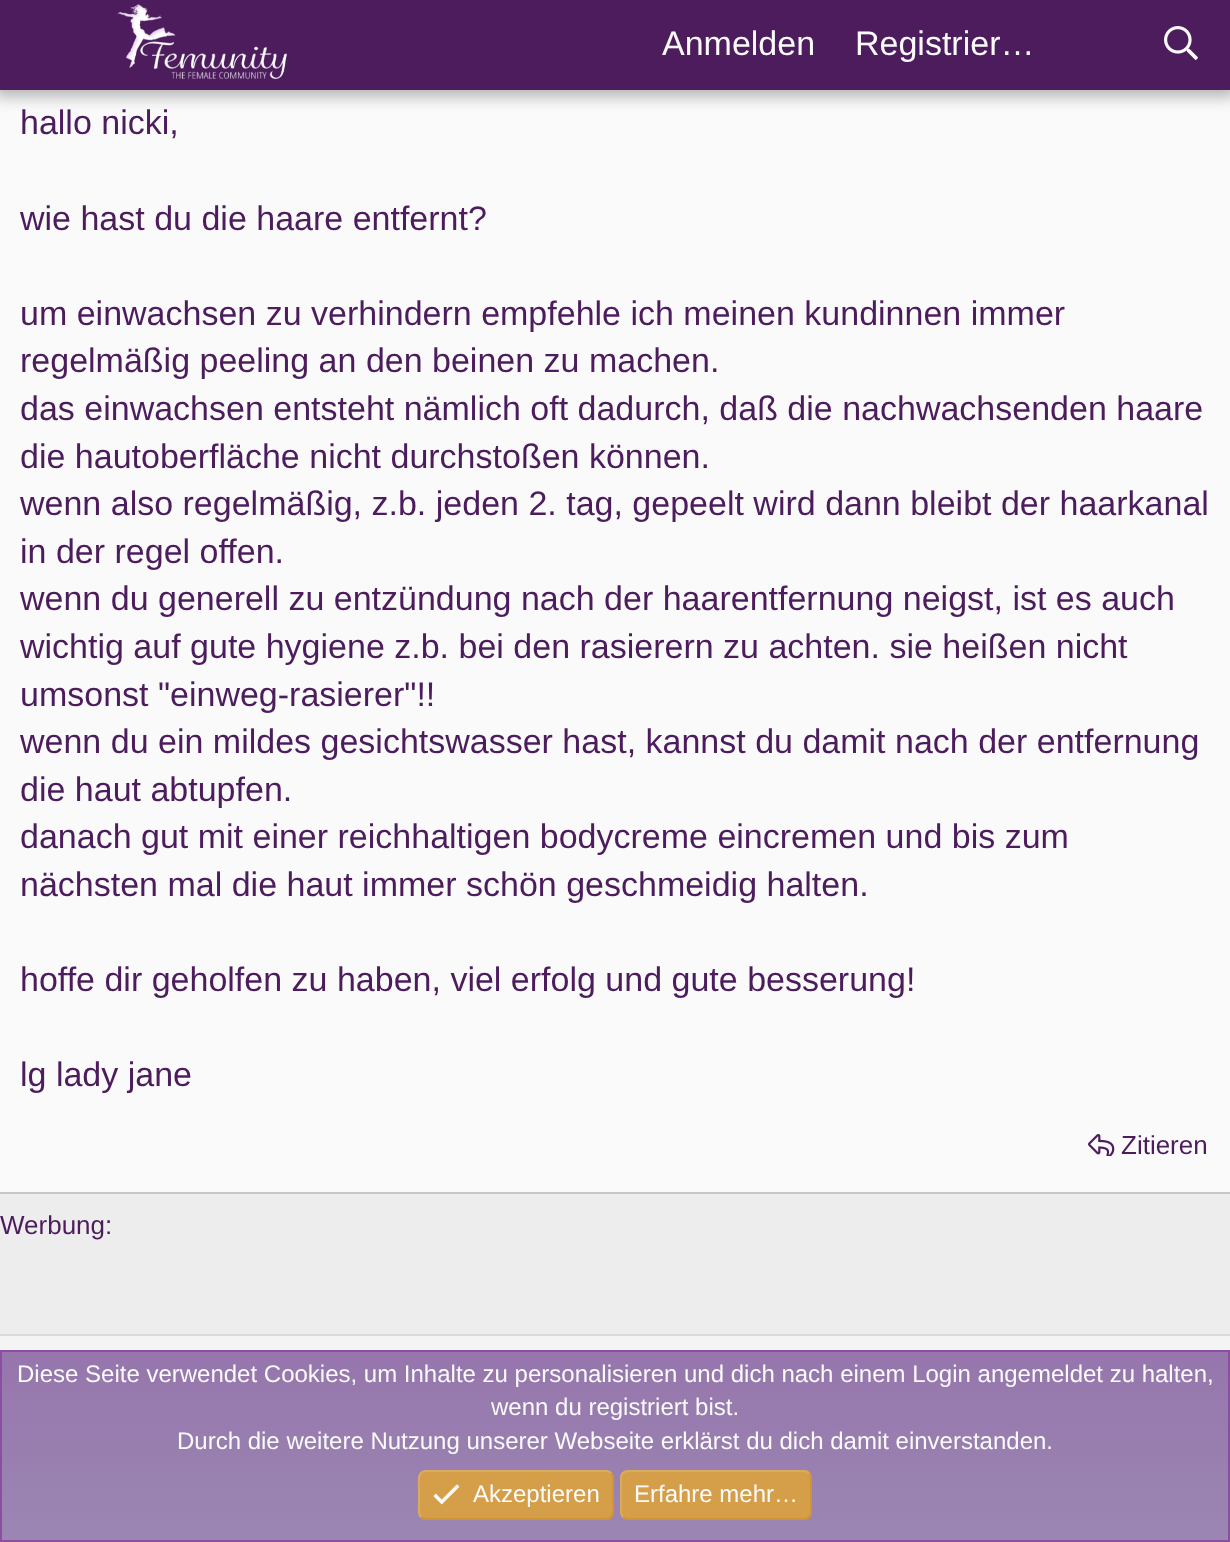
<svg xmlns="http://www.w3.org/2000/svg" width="1230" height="1542">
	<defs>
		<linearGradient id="g1" gradientUnits="userSpaceOnUse" x1="615" y1="1540" x2="615" y2="1352"><stop offset="0" stop-color="#9B86B2" /><stop offset="1" stop-color="#9676AD" /></linearGradient>
	</defs>
	<rect width="100%" height="100%" fill="#EDEDED" />
	<rect x="0" y="90" width="1230" height="1102" fill="#FAFAFA" />
	<rect x="-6" y="-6" width="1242" height="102" fill="#000000" fill-opacity="0.3" filter="blur(8px)" />
	<rect x="0" y="0" width="1230" height="90" fill="#4C1C5D" />
	<image x="117" y="3" width="170" height="76" href="assets/img1.png" />
	<g font-family="Liberation Sans" font-size="34" fill="#FAFAFA">
		<text x="662" y="55">Anmelden</text>
		<text x="855" y="55">Registrier…</text>
	</g>
	<image x="1164" y="26" width="34" height="34" href="assets/img2.png" />
	<rect x="0" y="1192" width="1230" height="2" fill="#C7C7C7" />
	<g font-family="Liberation Sans" font-size="34" fill="#4C1C5D">
		<text x="20" y="134">hallo nicki,</text>
		<text x="20" y="230">wie hast du die haare entfernt?</text>
		<text x="20" y="325">um einwachsen zu verhindern empfehle ich meinen kundinnen immer</text>
		<text x="20" y="372">regelmäßig peeling an den beinen zu machen.</text>
		<text x="20" y="420">das einwachsen entsteht nämlich oft dadurch, daß die nachwachsenden haare</text>
		<text x="20" y="468">die hautoberfläche nicht durchstoßen können.</text>
		<text x="20" y="515">wenn also regelmäßig, z.b. jeden 2. tag, gepeelt wird dann bleibt der haarkanal</text>
		<text x="20" y="563">in der regel offen.</text>
		<text x="20" y="610">wenn du generell zu entzündung nach der haarentfernung neigst, ist es auch</text>
		<text x="20" y="658">wichtig auf gute hygiene z.b. bei den rasierern zu achten. sie heißen nicht</text>
		<text x="20" y="706">umsonst "einweg-rasierer"!!</text>
		<text x="20" y="753">wenn du ein mildes gesichtswasser hast, kannst du damit nach der entfernung</text>
		<text x="20" y="801">die haut abtupfen.</text>
		<text x="20" y="848">danach gut mit einer reichhaltigen bodycreme eincremen und bis zum</text>
		<text x="20" y="896">nächsten mal die haut immer schön geschmeidig halten.</text>
		<text x="20" y="991">hoffe dir geholfen zu haben, viel erfolg und gute besserung!</text>
		<text x="20" y="1086">lg lady jane</text>
	</g>
	<image x="1088" y="1134" width="27" height="22" href="assets/img3.png" />
	<g font-family="Liberation Sans" font-size="26" fill="#4C1C5D">
		<text x="1121" y="1154">Zitieren</text>
		<text x="0" y="1234">Werbung:</text>
	</g>
	<rect x="0" y="1334" width="1230" height="2" fill="#DBDBDB" />
	<rect x="0" y="1336" width="1230" height="14" fill="#F4F4F4" />
	<rect x="2" y="1352" width="1226" height="188" fill="url(#g1)" />
	<rect x="1" y="1351" width="1228" height="190" fill="none" stroke="#8B4FA1" stroke-width="2" />
	<g font-family="Liberation Sans" font-size="24" fill="#FAFAFA">
		<text x="17" y="1382">Diese Seite verwendet Cookies, um Inhalte zu personalisieren und dich nach einem Login angemeldet zu halten,</text>
		<text x="491" y="1415">wenn du registriert bist.</text>
		<text x="177" y="1449">Durch die weitere Nutzung unserer Webseite erklärst du dich damit einverstanden.</text>
	</g>
	<rect x="418" y="1470" width="196" height="50" rx="8" fill="#D59F49" />
	<path d="M611 1473C614 1476 613 1480 613 1483.5V1500.5C613 1506 615.5 1519 606 1519H426C424 1519 422.5 1518.5 421 1517" fill="none" stroke="#D09434" stroke-width="2" />
	<path d="M421 1517C418 1514 419 1510 419 1506.5V1489.5C419 1484 416.5 1471 426 1471H606C608 1471 609.5 1471.5 611 1473" fill="none" stroke="#DAAA5E" stroke-width="2" />
	<image x="433" y="1484" width="27" height="21" href="assets/img4.png" />
	<text x="473" y="1502" font-family="Liberation Sans" font-size="24" fill="#FAFAFA">Akzeptieren</text>
	<rect x="620" y="1470" width="192" height="50" rx="8" fill="#D59F49" />
	<path d="M809 1473C810.5 1474.5 811 1476 811 1478V1512C811 1514 810.5 1515.5 809 1517C807.5 1518.5 806 1519 804 1519H628C626 1519 624.5 1518.5 623 1517" fill="none" stroke="#D09434" stroke-width="2" />
	<path d="M623 1517C621.5 1515.5 621 1514 621 1512V1478C621 1476 621.5 1474.5 623 1473C624.5 1471.5 626 1471 628 1471H804C806 1471 807.5 1471.5 809 1473" fill="none" stroke="#DAAA5E" stroke-width="2" />
	<text x="634" y="1502" font-family="Liberation Sans" font-size="24" fill="#FAFAFA">Erfahre mehr…</text>
</svg>
